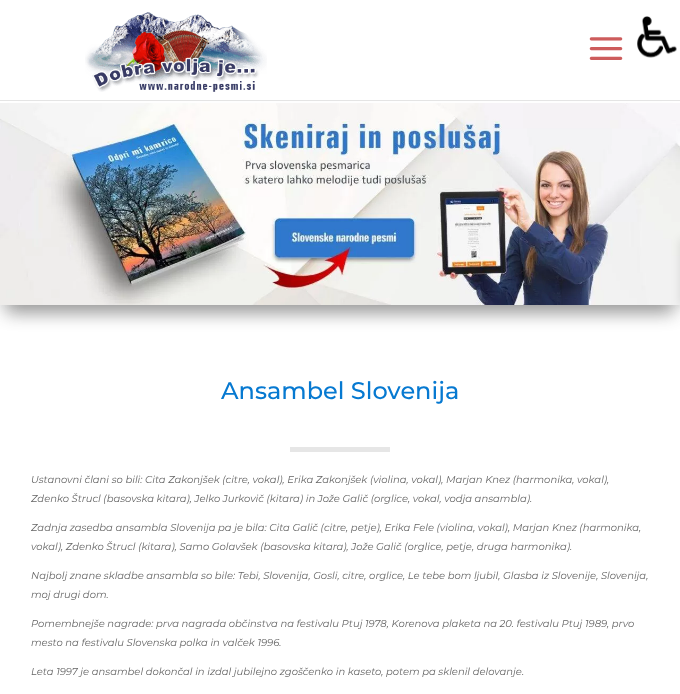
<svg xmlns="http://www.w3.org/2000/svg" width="680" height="694">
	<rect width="100%" height="100%" fill="#FFFFFF" />
	<image x="637" y="16" width="40" height="42" href="assets/img1.png" />
	<rect x="6" y="121" width="668" height="191" fill="#000000" fill-opacity="0.3" filter="blur(9px)" />
	<rect x="6" y="121" width="668" height="191" fill="#000000" fill-opacity="0.16" filter="blur(9px)" />
	<image x="0" y="103" width="680" height="202" href="assets/img4.png" />
	<rect x="680" y="239" width="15" height="66" fill="#000000" fill-opacity="0.1" filter="blur(5px)" />
	<rect x="0" y="100" width="680" height="1" fill="#E4E4E4" />
	<image x="85" y="12" width="182" height="80" href="assets/img2.png" />
	<image x="589" y="37" width="34" height="23" href="assets/img3.png" />
	<text x="221" y="399" font-family="Montserrat" font-size="24" font-weight="500" fill="#0679D1">Ansambel Slovenija</text>
	<rect x="290" y="447" width="100" height="5" fill="#E6E6E6" />
	<g font-family="Montserrat" font-size="10" font-style="italic" fill="#666666">
		<text x="31" y="483">Ustanovni člani so bili: Cita Zakonjšek (citre, vokal), Erika Zakonjšek (violina, vokal), Marjan Knez (harmonika, vokal),</text>
		<text x="31" y="502">Zdenko Štrucl (basovska kitara), Jelko Jurkovič (kitara) in Jože Galič (orglice, vokal, vodja ansambla).</text>
		<text x="31" y="531">Zadnja zasedba ansambla Slovenija pa je bila: Cita Galič (citre, petje), Erika Fele (violina, vokal), Marjan Knez (harmonika,</text>
		<text x="31" y="550">vokal), Zdenko Štrucl (kitara), Samo Golavšek (basovska kitara), Jože Galič (orglice, petje, druga harmonika).</text>
		<text x="31" y="579">Najbolj znane skladbe ansambla so bile: Tebi, Slovenija, Gosli, citre, orglice, Le tebe bom ljubil, Glasba iz Slovenije, Slovenija,</text>
		<text x="31" y="598">moj drugi dom.</text>
		<text x="31" y="627">Pomembnejše nagrade: prva nagrada občinstva na festivalu Ptuj 1978, Korenova plaketa na 20. festivalu Ptuj 1989, prvo</text>
		<text x="31" y="646">mesto na festivalu Slovenska polka in valček 1996.</text>
		<text x="31" y="675">Leta 1997 je ansambel dokončal in izdal jubilejno zgoščenko in kaseto, potem pa sklenil delovanje.</text>
	</g>
</svg>
